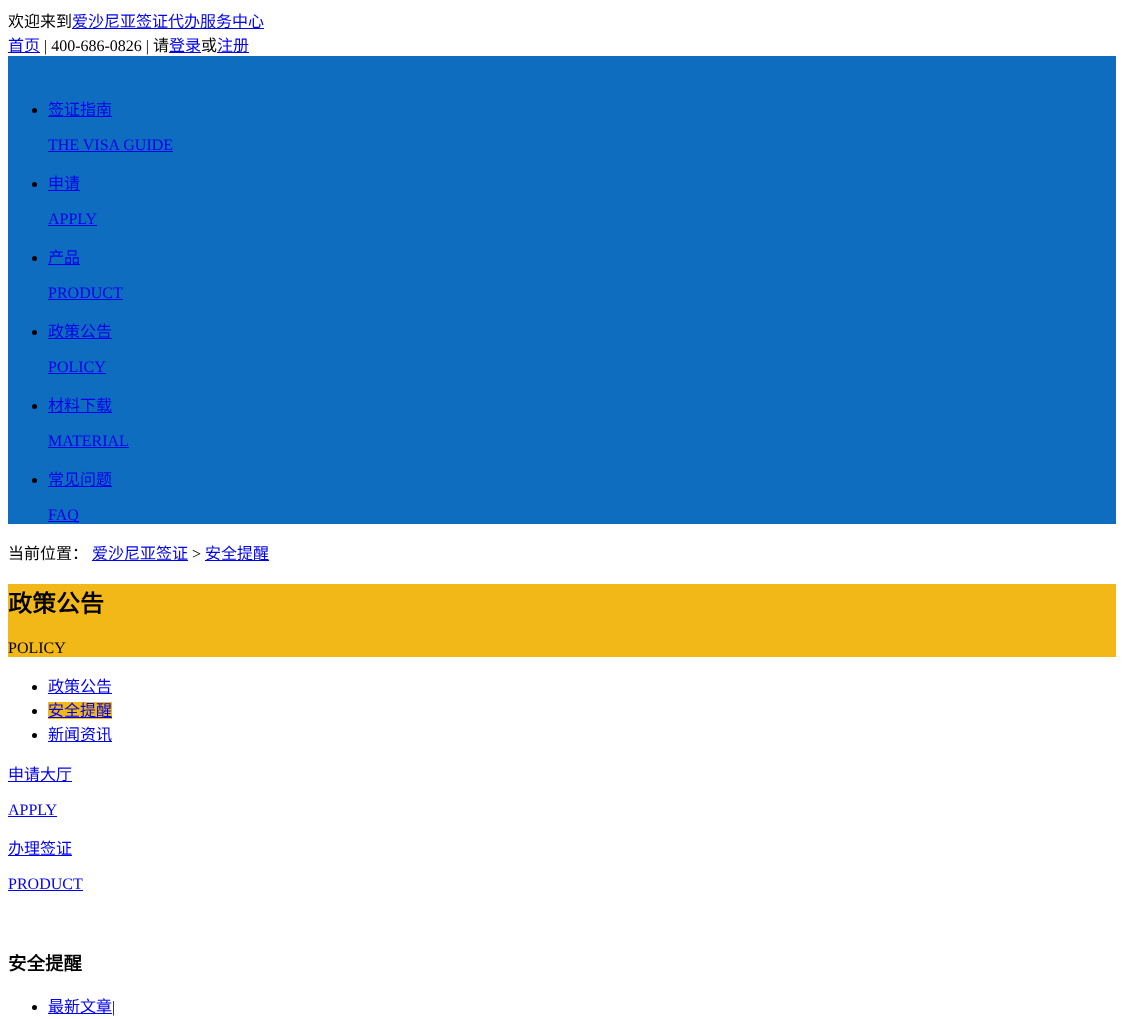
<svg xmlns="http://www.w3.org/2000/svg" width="1124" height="1019">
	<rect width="100%" height="100%" fill="#FFFFFF" />
	<text x="8" y="27" font-family="Noto Sans CJK SC" font-size="16" fill="#000000">欢迎来到</text>
	<rect x="72" y="28" width="192" height="1" fill="#0000EE" />
	<text x="72" y="27" font-family="Noto Sans CJK SC" font-size="16" fill="#0000EE">爱沙尼亚签证代办服务中心</text>
	<rect x="8" y="52" width="32" height="1" fill="#0000EE" />
	<text x="8" y="51" font-family="Noto Sans CJK SC" font-size="16" fill="#0000EE">首页</text>
	<text x="44" y="51" font-family="Liberation Serif" font-size="16" fill="#000000">| 400-686-0826 |</text>
	<text x="153" y="51" font-family="Noto Sans CJK SC" font-size="16" fill="#000000">请</text>
	<rect x="169" y="52" width="32" height="1" fill="#0000EE" />
	<text x="169" y="51" font-family="Noto Sans CJK SC" font-size="16" fill="#0000EE">登录</text>
	<text x="201" y="51" font-family="Noto Sans CJK SC" font-size="16" fill="#000000">或</text>
	<rect x="217" y="52" width="32" height="1" fill="#0000EE" />
	<text x="217" y="51" font-family="Noto Sans CJK SC" font-size="16" fill="#0000EE">注册</text>
	<rect x="8" y="56" width="1108" height="468" fill="#0F6DBF" />
	<circle cx="34.5" cy="110.5" r="2.5" fill="#000000" />
	<rect x="48" y="116" width="64" height="1" fill="#0000EE" />
	<text x="48" y="115" font-family="Noto Sans CJK SC" font-size="16" fill="#0000EE">签证指南</text>
	<text x="48" y="150" font-family="Liberation Serif" font-size="16" fill="#0000EE">THE VISA GUIDE</text>
	<rect x="48" y="151" width="125" height="1" fill="#0000EE" />
	<circle cx="34.5" cy="184.5" r="2.5" fill="#000000" />
	<rect x="48" y="190" width="32" height="1" fill="#0000EE" />
	<text x="48" y="189" font-family="Noto Sans CJK SC" font-size="16" fill="#0000EE">申请</text>
	<text x="48" y="224" font-family="Liberation Serif" font-size="16" fill="#0000EE">APPLY</text>
	<rect x="48" y="225" width="49" height="1" fill="#0000EE" />
	<circle cx="34.5" cy="258.5" r="2.5" fill="#000000" />
	<rect x="48" y="264" width="32" height="1" fill="#0000EE" />
	<text x="48" y="263" font-family="Noto Sans CJK SC" font-size="16" fill="#0000EE">产品</text>
	<text x="48" y="298" font-family="Liberation Serif" font-size="16" fill="#0000EE">PRODUCT</text>
	<rect x="48" y="299" width="75" height="1" fill="#0000EE" />
	<circle cx="34.5" cy="332.5" r="2.5" fill="#000000" />
	<rect x="48" y="338" width="64" height="1" fill="#0000EE" />
	<text x="48" y="337" font-family="Noto Sans CJK SC" font-size="16" fill="#0000EE">政策公告</text>
	<text x="48" y="372" font-family="Liberation Serif" font-size="16" fill="#0000EE">POLICY</text>
	<rect x="48" y="373" width="58" height="1" fill="#0000EE" />
	<circle cx="34.5" cy="406.5" r="2.5" fill="#000000" />
	<rect x="48" y="412" width="64" height="1" fill="#0000EE" />
	<text x="48" y="411" font-family="Noto Sans CJK SC" font-size="16" fill="#0000EE">材料下载</text>
	<text x="48" y="446" font-family="Liberation Serif" font-size="16" fill="#0000EE">MATERIAL</text>
	<rect x="48" y="447" width="81" height="1" fill="#0000EE" />
	<circle cx="34.5" cy="480.5" r="2.5" fill="#000000" />
	<rect x="48" y="486" width="64" height="1" fill="#0000EE" />
	<text x="48" y="485" font-family="Noto Sans CJK SC" font-size="16" fill="#0000EE">常见问题</text>
	<rect x="48" y="521" width="31" height="1" fill="#0000EE" />
	<text x="48" y="520" font-family="Liberation Serif" font-size="16" fill="#0000EE">FAQ</text>
	<text x="8" y="559" font-family="Noto Sans CJK SC" font-size="16" fill="#000000">当前位置：</text>
	<rect x="92" y="560" width="96" height="1" fill="#0000EE" />
	<text x="92" y="559" font-family="Noto Sans CJK SC" font-size="16" fill="#0000EE">爱沙尼亚签证</text>
	<text x="192" y="559" font-family="Liberation Serif" font-size="16" fill="#000000">&gt;</text>
	<rect x="205" y="560" width="64" height="1" fill="#0000EE" />
	<text x="205" y="559" font-family="Noto Sans CJK SC" font-size="16" fill="#0000EE">安全提醒</text>
	<rect x="8" y="584" width="1108" height="73" fill="#F2B818" />
	<text x="8" y="612" font-family="Noto Sans CJK SC" font-size="24" font-weight="700" fill="#000000">政策公告</text>
	<text x="8" y="653" font-family="Liberation Serif" font-size="16" fill="#000000">POLICY</text>
	<circle cx="34.5" cy="687.5" r="2.5" fill="#000000" />
	<rect x="48" y="693" width="64" height="1" fill="#0000EE" />
	<text x="48" y="692" font-family="Noto Sans CJK SC" font-size="16" fill="#0000EE">政策公告</text>
	<circle cx="34.5" cy="711.5" r="2.5" fill="#000000" />
	<rect x="48" y="702" width="64" height="17" fill="#F2B818" />
	<rect x="48" y="717" width="64" height="1" fill="#0000EE" />
	<text x="48" y="716" font-family="Noto Sans CJK SC" font-size="16" fill="#0000EE">安全提醒</text>
	<circle cx="34.5" cy="735.5" r="2.5" fill="#000000" />
	<rect x="48" y="741" width="64" height="1" fill="#0000EE" />
	<text x="48" y="740" font-family="Noto Sans CJK SC" font-size="16" fill="#0000EE">新闻资讯</text>
	<rect x="8" y="781" width="64" height="1" fill="#0000EE" />
	<text x="8" y="780" font-family="Noto Sans CJK SC" font-size="16" fill="#0000EE">申请大厅</text>
	<text x="8" y="815" font-family="Liberation Serif" font-size="16" fill="#0000EE">APPLY</text>
	<rect x="8" y="816" width="49" height="1" fill="#0000EE" />
	<rect x="8" y="855" width="64" height="1" fill="#0000EE" />
	<text x="8" y="854" font-family="Noto Sans CJK SC" font-size="16" fill="#0000EE">办理签证</text>
	<text x="8" y="889" font-family="Liberation Serif" font-size="16" fill="#0000EE">PRODUCT</text>
	<rect x="8" y="890" width="75" height="1" fill="#0000EE" />
	<text x="8" y="970" font-family="Noto Sans CJK SC" font-size="18.5" font-weight="700" fill="#000000">安全提醒</text>
	<circle cx="34.5" cy="1007.5" r="2.5" fill="#000000" />
	<rect x="48" y="1013" width="64" height="1" fill="#0000EE" />
	<text x="48" y="1012" font-family="Noto Sans CJK SC" font-size="16" fill="#0000EE">最新文章</text>
	<text x="112" y="1012" font-family="Liberation Serif" font-size="16" fill="#000000">|</text>
</svg>
